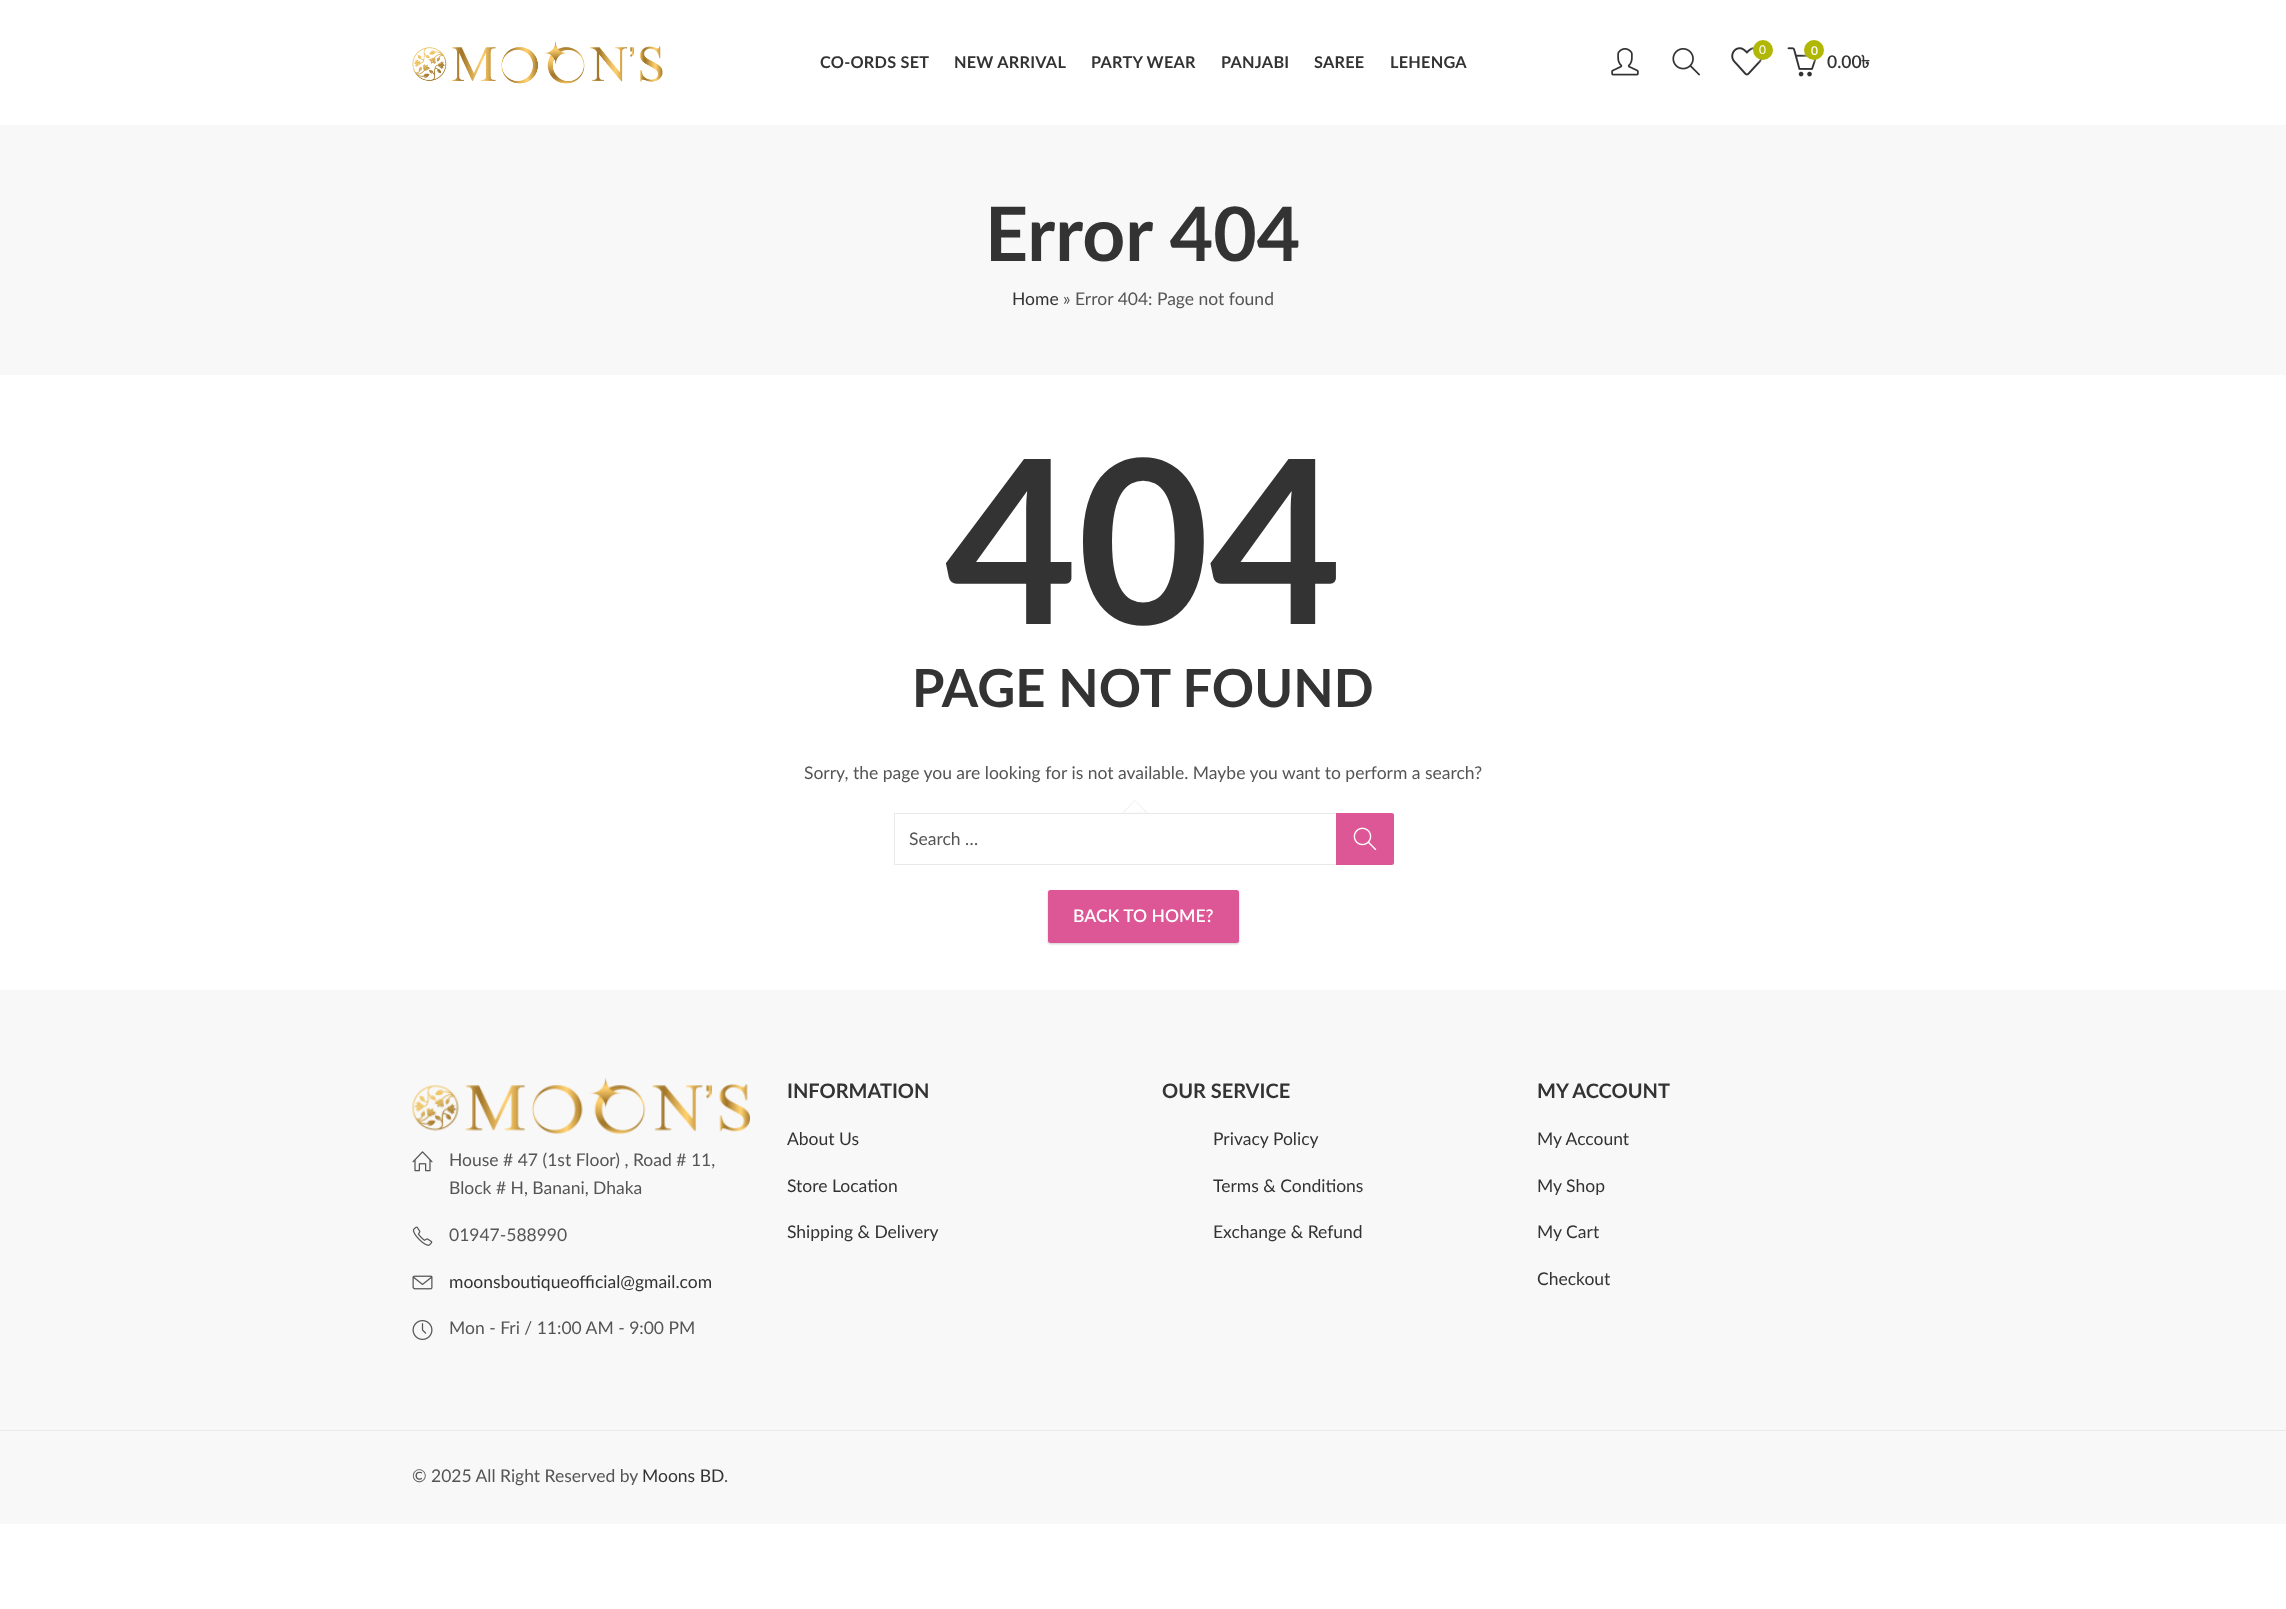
<svg xmlns="http://www.w3.org/2000/svg" width="2286" height="1609">
	<rect width="100%" height="100%" fill="#FFFFFF" />
	<image x="412" y="41" width="251" height="43" href="assets/img1.png" />
	<g font-family="Lato" font-size="16.25" font-weight="700" letter-spacing="0.25" fill="#333333">
		<text x="820" y="68">CO-ORDS SET</text>
		<text x="954" y="68">NEW ARRIVAL</text>
		<text x="1091" y="68">PARTY WEAR</text>
		<text x="1221" y="68">PANJABI</text>
		<text x="1314" y="68">SAREE</text>
		<text x="1390" y="68">LEHENGA</text>
	</g>
	<image x="1611" y="48" width="28" height="28" href="assets/img2.png" />
	<image x="1672" y="48" width="28" height="28" href="assets/img3.png" />
	<image x="1731" y="47" width="32" height="29" href="assets/img4.png" />
	<rect x="1753" y="40" width="20" height="20" rx="10" fill="#FFFFFF" fill-opacity="0.7" filter="blur(2px)" />
	<circle cx="1763" cy="50" r="10" fill="#B1B705" />
	<text x="1759" y="54" font-family="Lato" font-size="12" fill="#FFFFFF">0</text>
	<image x="1787" y="47" width="30" height="30" href="assets/img5.png" />
	<rect x="1804" y="40" width="20" height="20" rx="10" fill="#FFFFFF" fill-opacity="0.7" filter="blur(2px)" />
	<circle cx="1814" cy="50" r="10" fill="#B1B705" />
	<text x="1811" y="55" font-family="Lato" font-size="12" font-weight="600" fill="#FFFFFF">0</text>
	<text x="1827" y="68" font-family="Lato" font-size="17.5" font-weight="600" fill="#333333">0.00</text>
	<text x="1861" y="68" font-family="Lohit Bengali" font-size="17.5" font-weight="700" fill="#333333">৳</text>
	<rect x="0" y="125" width="2286" height="250" fill="#F8F8F8" />
	<text x="985" y="261" font-family="Lato" font-size="75" font-weight="700" fill="#333333">Error 404</text>
	<text x="1012" y="305" font-family="Lato" font-size="17.5" fill="#333333">Home</text>
	<text x="1063" y="305" font-family="Lato" font-size="17.5" fill="#555555">» Error 404: Page not found</text>
	<text x="945" y="624" font-family="Lato" font-size="228" font-weight="700" fill="#333333">404</text>
	<text x="912" y="707" font-family="Lato" font-size="52.5" font-weight="700" fill="#333333">PAGE NOT FOUND</text>
	<text x="804" y="779" font-family="Lato" font-size="17.5" fill="#555555">Sorry, the page you are looking for is not available. Maybe you want to perform a search?</text>
	<path d="M1147.5 812.5H1122.5L1135 800Z" fill="#F0F0F0" />
	<path d="M1146 812.5H1124L1135 801Z" fill="#FFFFFF" />
	<rect x="894.5" y="813.5" width="499" height="51" fill="none" stroke="#E9E9E9" />
	<text x="909" y="845" font-family="Lato" font-size="17.5" fill="#555555">Search …</text>
	<path d="M1336 813H1391.5C1393 813 1394 814 1394 815.5V862.5C1394 864 1393 865 1391.5 865H1336Z" fill="#DD5796" />
	<image x="1353" y="827" width="24" height="24" href="assets/img6.png" />
	<rect x="1048" y="891" width="191" height="53" rx="2.5" fill="#000000" fill-opacity="0.2" filter="blur(1px)" />
	<rect x="1048" y="890" width="191" height="53" rx="2.5" fill="#DD5796" />
	<text x="1073" y="922" font-family="Lato" font-size="17.5" font-weight="600" fill="#FFFFFF">BACK TO HOME?</text>
	<rect x="0" y="990" width="2286" height="440" fill="#F8F8F8" />
	<image x="412" y="1077" width="338" height="57" href="assets/img7.png" />
	<image x="412" y="1151" width="21" height="21" href="assets/img8.png" />
	<g font-family="Lato" font-size="17.5" fill="#555555">
		<text x="449" y="1166">House # 47 (1st Floor) , Road # 11,</text>
		<text x="449" y="1194">Block # H, Banani, Dhaka</text>
	</g>
	<image x="412" y="1226" width="21" height="20" href="assets/img9.png" />
	<text x="449" y="1241" font-family="Lato" font-size="17.5" fill="#555555">01947-588990</text>
	<image x="412" y="1275" width="21" height="15" href="assets/img10.png" />
	<text x="449" y="1288" font-family="Lato" font-size="17.5" fill="#333333">moonsboutiqueofficial@gmail.com</text>
	<image x="412" y="1320" width="21" height="20" href="assets/img11.png" />
	<text x="449" y="1334" font-family="Lato" font-size="17.5" fill="#555555">Mon - Fri / 11:00 AM - 9:00 PM</text>
	<text x="787" y="1098" font-family="Lato" font-size="20" font-weight="700" fill="#333333">INFORMATION</text>
	<g font-family="Lato" font-size="17.5" fill="#333333">
		<text x="787" y="1145">About Us</text>
		<text x="787" y="1192">Store Location</text>
		<text x="787" y="1238">Shipping &amp; Delivery</text>
	</g>
	<text x="1162" y="1098" font-family="Lato" font-size="20" font-weight="700" fill="#333333">OUR SERVICE</text>
	<g font-family="Lato" font-size="17.5" fill="#333333">
		<text x="1213" y="1145">Privacy Policy</text>
		<text x="1213" y="1192">Terms &amp; Conditions</text>
		<text x="1213" y="1238">Exchange &amp; Refund</text>
	</g>
	<text x="1537" y="1098" font-family="Lato" font-size="20" font-weight="700" fill="#333333">MY ACCOUNT</text>
	<g font-family="Lato" font-size="17.5" fill="#333333">
		<text x="1537" y="1145">My Account</text>
		<text x="1537" y="1192">My Shop</text>
		<text x="1537" y="1238">My Cart</text>
		<text x="1537" y="1285">Checkout</text>
	</g>
	<rect x="0" y="1431" width="2286" height="93" fill="#F8F8F8" />
	<rect x="0" y="1430" width="2286" height="1" fill="#E9E9E9" />
	<text x="412" y="1482" font-family="Lato" font-size="17.5" fill="#555555">© 2025 All Right Reserved by</text>
	<text x="642" y="1482" font-family="Lato" font-size="17.5" fill="#333333">Moons BD</text>
	<text x="724" y="1482" font-family="Lato" font-size="17.5" fill="#555555">.</text>
</svg>
